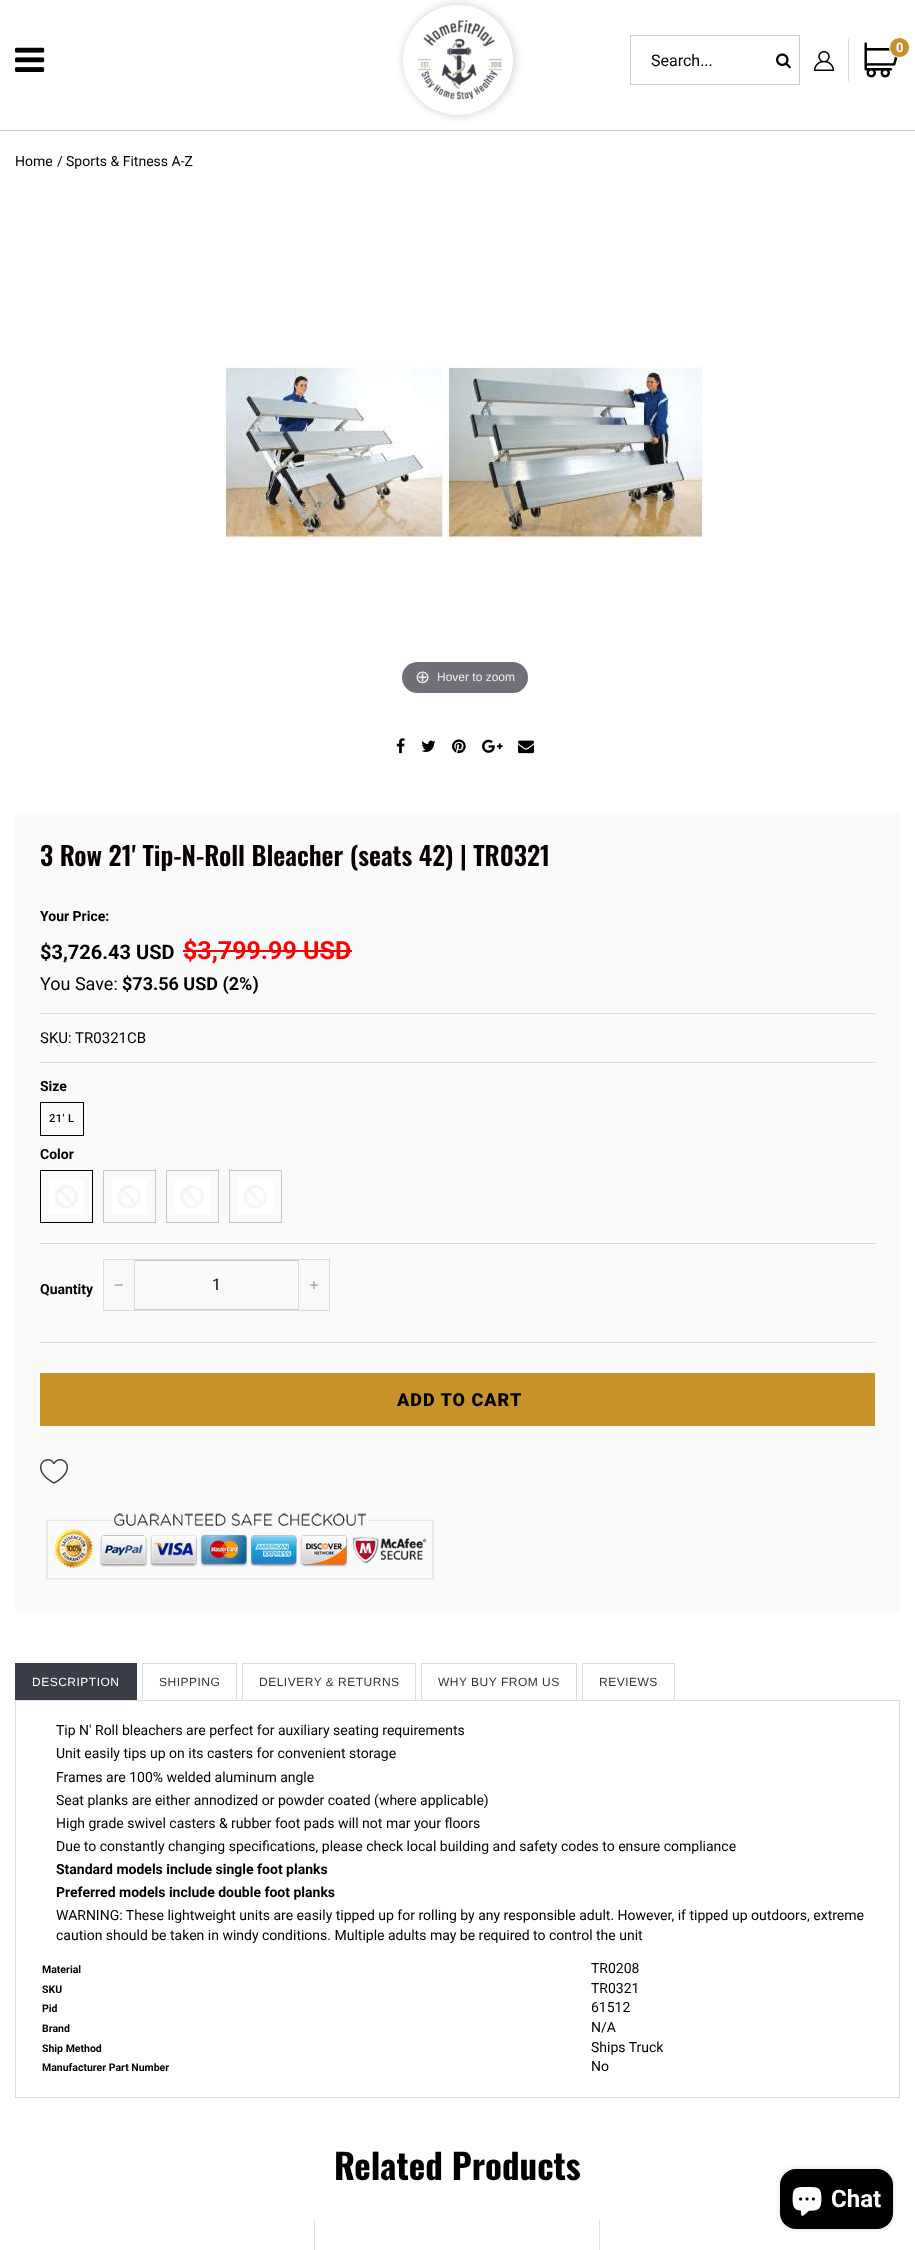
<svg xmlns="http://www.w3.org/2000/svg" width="915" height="2250">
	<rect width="100%" height="100%" fill="#FFFFFF" />
	<rect x="0" y="130" width="915" height="1" fill="#CCCCCC" />
	<image x="15" y="47" width="30" height="25" href="assets/img1.png" />
	<rect x="404" y="5" width="110" height="110" rx="55" fill="#CCCCCC" filter="blur(5px)" />
	<circle cx="458" cy="60" r="55" fill="#FFFFFF" />
	<image x="418" y="20" width="86" height="80" href="assets/img2.png" />
	<rect x="848" y="39" width="1" height="42" fill="#D9D9D9" />
	<image x="814" y="51" width="20" height="20" href="assets/img3.png" />
	<image x="864" y="42" width="34" height="36" href="assets/img4.png" />
	<circle cx="899.5" cy="47.5" r="10" fill="#C8922A" stroke="#FFFFFF" />
	<text x="896" y="52" font-family="Roboto" font-size="13" font-weight="700" fill="#FFFFFF">0</text>
	<rect x="630.5" y="35.5" width="169" height="49" fill="none" stroke="#CCCCCC" />
	<text x="651" y="66" font-family="Roboto" font-size="16" fill="#000000">Search...</text>
	<image x="776" y="53" width="15" height="16" href="assets/img5.png" />
	<g font-family="Roboto" font-size="14" fill="#000000">
		<text x="15" y="166">Home</text>
		<text x="57" y="166">/</text>
		<text x="66" y="166">Sports &amp; Fitness A-Z</text>
	</g>
	<image x="223" y="363" width="482" height="177" href="assets/img6.png" />
	<rect x="402" y="662" width="126" height="31" rx="15.5" fill="#6F7077" />
	<text x="415" y="683" font-family="DejaVu Sans" font-size="18" fill="#EEEEEE">⊕</text>
	<text x="437" y="681" font-family="Liberation Sans" font-size="12" fill="#EEEEEE">Hover to zoom</text>
	<image x="396" y="738" width="9" height="16" href="assets/img7.png" />
	<image x="421" y="740" width="15" height="12" href="assets/img8.png" />
	<image x="452" y="739" width="14" height="15" href="assets/img9.png" />
	<image x="482" y="739" width="21" height="14" href="assets/img10.png" />
	<image x="518" y="740" width="16" height="14" href="assets/img11.png" />
	<rect x="15" y="812" width="885" height="801" fill="#FAFAFA" />
	<text x="40" y="866" font-family="Oswald" font-size="26" font-weight="600" fill="#080000">3 Row 21' Tip-N-Roll Bleacher (seats 42) | TR0321</text>
	<text x="40" y="921" font-family="Roboto" font-size="14" font-weight="700" fill="#000000">Your Price:</text>
	<text x="40" y="959" font-family="Roboto" font-size="20" font-weight="700" fill="#000000">$3,726.43 USD</text>
	<text x="183" y="959" font-family="Roboto" font-size="25" font-weight="700" fill="#FF0000">$3,799.99 USD</text>
	<rect x="183" y="950" width="169" height="2" fill="#FF0000" />
	<text x="40" y="990" font-family="Roboto" font-size="18" fill="#000000">You Save:</text>
	<text x="122" y="990" font-family="Roboto" font-size="18" font-weight="700" fill="#000000">$73.56 USD (2%)</text>
	<rect x="40" y="1013" width="835" height="1" fill="#DCDCDC" />
	<rect x="40" y="1062" width="835" height="1" fill="#DCDCDC" />
	<text x="40" y="1043" font-family="Roboto" font-size="15" fill="#000000">SKU: TR0321CB</text>
	<text x="40" y="1091" font-family="Roboto" font-size="14" font-weight="700" fill="#000000">Size</text>
	<rect x="40.5" y="1102.5" width="43" height="33" fill="none" stroke="#000000" />
	<text x="49" y="1122" font-family="Roboto" font-size="11" font-weight="500" letter-spacing="0.5" fill="#000000">21' L</text>
	<text x="40" y="1159" font-family="Roboto" font-size="14" font-weight="700" fill="#000000">Color</text>
	<rect x="40.5" y="1170.5" width="52" height="52" fill="none" stroke="#000000" />
	<image x="49" y="1179" width="35" height="35" href="assets/img12.png" />
	<rect x="103.5" y="1170.5" width="52" height="52" fill="none" stroke="#C8C8C8" />
	<image x="112" y="1179" width="35" height="35" href="assets/img12.png" />
	<rect x="166.5" y="1170.5" width="52" height="52" fill="none" stroke="#C8C8C8" />
	<image x="175" y="1179" width="35" height="35" href="assets/img12.png" />
	<rect x="229.5" y="1170.5" width="52" height="52" fill="none" stroke="#C8C8C8" />
	<image x="238" y="1179" width="35" height="35" href="assets/img12.png" />
	<rect x="40" y="1243" width="835" height="1" fill="#DCDCDC" />
	<rect x="40" y="1342" width="835" height="1" fill="#DCDCDC" />
	<text x="40" y="1294" font-family="Roboto" font-size="14" font-weight="700" fill="#000000">Quantity</text>
	<rect x="103.5" y="1259.5" width="226" height="51" fill="none" stroke="#DDDCDC" />
	<rect x="104.5" y="1260.5" width="224" height="49" fill="none" stroke="#CCCCCC" />
	<rect x="104" y="1260" width="30" height="50" fill="#F9F9F9" />
	<rect x="134" y="1260" width="1" height="50" fill="#DDDCDC" />
	<image x="114" y="1284" width="9" height="2" href="assets/img13.png" />
	<text x="212" y="1290" font-family="Roboto" font-size="16" fill="#000000">1</text>
	<rect x="299" y="1260" width="30" height="50" fill="#F9F9F9" />
	<rect x="298" y="1260" width="1" height="50" fill="#DDDCDC" />
	<image x="309" y="1281" width="10" height="9" href="assets/img14.png" />
	<rect x="40" y="1373" width="835" height="53" fill="#C8922A" />
	<text x="397" y="1406" font-family="Roboto" font-size="18" font-weight="900" letter-spacing="1" fill="#000000">ADD TO CART</text>
	<image x="40" y="1459" width="28" height="25" href="assets/img15.png" />
	<image x="46" y="1513" width="388" height="67" href="assets/img16.png" />
	<rect x="15" y="1663" width="122" height="37" fill="#3A3D47" />
	<text x="32" y="1686" font-family="Liberation Sans" font-size="12" letter-spacing="0.5" fill="#FFFFFF">DESCRIPTION</text>
	<rect x="142" y="1663" width="95" height="1" fill="#DCDCDC" />
	<rect x="236" y="1663" width="1" height="37" fill="#DCDCDC" />
	<rect x="142" y="1663" width="1" height="37" fill="#DCDCDC" />
	<text x="159" y="1686" font-family="Liberation Sans" font-size="12" letter-spacing="0.5" fill="#333333">SHIPPING</text>
	<rect x="242" y="1663" width="174" height="1" fill="#DCDCDC" />
	<rect x="415" y="1663" width="1" height="37" fill="#DCDCDC" />
	<rect x="242" y="1663" width="1" height="37" fill="#DCDCDC" />
	<text x="259" y="1686" font-family="Liberation Sans" font-size="12" letter-spacing="0.5" fill="#333333">DELIVERY &amp; RETURNS</text>
	<rect x="421" y="1663" width="156" height="1" fill="#DCDCDC" />
	<rect x="576" y="1663" width="1" height="37" fill="#DCDCDC" />
	<rect x="421" y="1663" width="1" height="37" fill="#DCDCDC" />
	<text x="438" y="1686" font-family="Liberation Sans" font-size="12" letter-spacing="0.5" fill="#333333">WHY BUY FROM US</text>
	<rect x="582" y="1663" width="93" height="1" fill="#DCDCDC" />
	<rect x="674" y="1663" width="1" height="37" fill="#DCDCDC" />
	<rect x="582" y="1663" width="1" height="37" fill="#DCDCDC" />
	<text x="599" y="1686" font-family="Liberation Sans" font-size="12" letter-spacing="0.5" fill="#333333">REVIEWS</text>
	<rect x="15.5" y="1700.5" width="884" height="397" fill="none" stroke="#DCDCDC" />
	<g font-family="Roboto" font-size="14" fill="#000000">
		<text x="56" y="1735">Tip N' Roll bleachers are perfect for auxiliary seating requirements</text>
		<text x="56" y="1758">Unit easily tips up on its casters for convenient storage</text>
		<text x="56" y="1782">Frames are 100% welded aluminum angle</text>
		<text x="56" y="1805">Seat planks are either annodized or powder coated (where applicable)</text>
		<text x="56" y="1828">High grade swivel casters &amp; rubber foot pads will not mar your floors</text>
		<text x="56" y="1851">Due to constantly changing specifications, please check local building and safety codes to ensure compliance</text>
	</g>
	<g font-family="Roboto" font-size="14" font-weight="700" fill="#000000">
		<text x="56" y="1874">Standard models include single foot planks</text>
		<text x="56" y="1897">Preferred models include double foot planks</text>
	</g>
	<g font-family="Roboto" font-size="14" fill="#000000">
		<text x="56" y="1920">WARNING: These lightweight units are easily tipped up for rolling by any responsible adult. However, if tipped up outdoors, extreme</text>
		<text x="56" y="1940">caution should be taken in windy conditions. Multiple adults may be required to control the unit</text>
	</g>
	<text x="42" y="1973" font-family="Roboto" font-size="10.5" font-weight="700" fill="#000000">Material</text>
	<text x="591" y="1973" font-family="Roboto" font-size="14" fill="#000000">TR0208</text>
	<text x="42" y="1993" font-family="Roboto" font-size="10.5" font-weight="700" fill="#000000">SKU</text>
	<text x="591" y="1993" font-family="Roboto" font-size="14" fill="#000000">TR0321</text>
	<text x="42" y="2012" font-family="Roboto" font-size="10.5" font-weight="700" fill="#000000">Pid</text>
	<text x="591" y="2012" font-family="Roboto" font-size="14" fill="#000000">61512</text>
	<text x="42" y="2032" font-family="Roboto" font-size="10.5" font-weight="700" fill="#000000">Brand</text>
	<text x="591" y="2032" font-family="Roboto" font-size="14" fill="#000000">N/A</text>
	<text x="42" y="2052" font-family="Roboto" font-size="10.5" font-weight="700" fill="#000000">Ship Method</text>
	<text x="591" y="2052" font-family="Roboto" font-size="14" fill="#000000">Ships Truck</text>
	<text x="42" y="2071" font-family="Roboto" font-size="10.5" font-weight="700" fill="#000000">Manufacturer Part Number</text>
	<text x="591" y="2071" font-family="Roboto" font-size="14" fill="#000000">No</text>
	<text x="334" y="2180" font-family="Oswald" font-size="35" font-weight="700" fill="#000000">Related Products</text>
	<rect x="314" y="2220" width="1" height="30" fill="#E2E2E4" />
	<rect x="599" y="2220" width="1" height="30" fill="#E2E2E4" />
	<rect x="780" y="2169" width="113" height="60" rx="16" fill="#000000" fill-opacity="0.15" filter="blur(2.5px)" />
	<rect x="780" y="2169" width="113" height="60" rx="16" fill="#000000" />
	<image x="792" y="2187" width="30" height="29" href="assets/img17.png" />
	<text x="831" y="2207" font-family="Roboto" font-size="24" font-weight="700" fill="#FFFFFF">Chat</text>
</svg>
